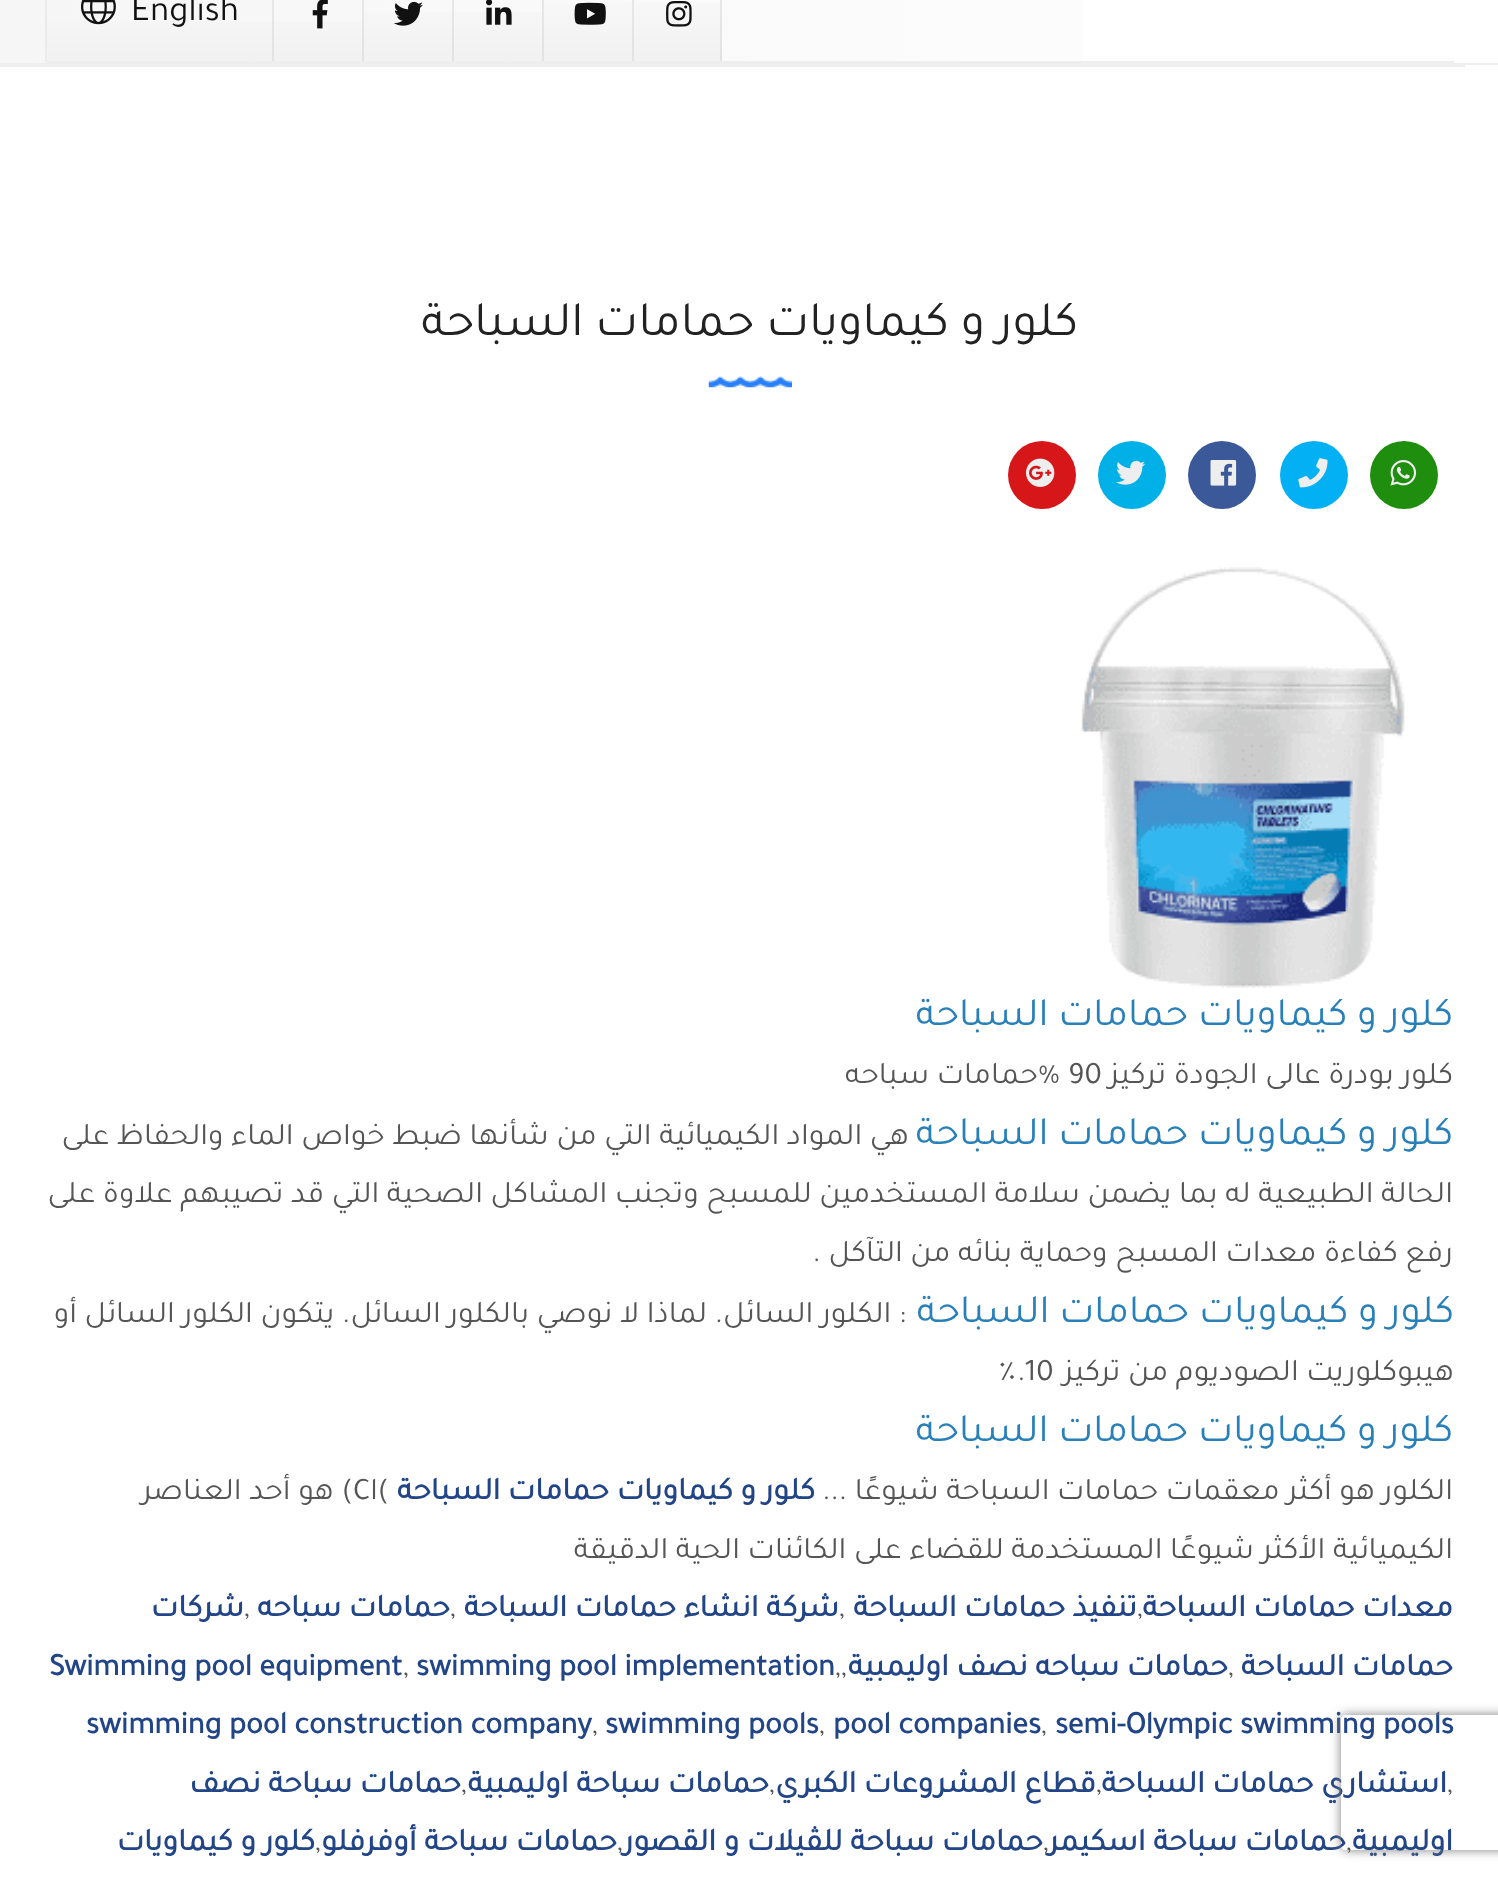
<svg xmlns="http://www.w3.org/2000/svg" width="1498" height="1880">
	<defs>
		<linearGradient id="g1" gradientUnits="userSpaceOnUse" x1="0" y1="113" x2="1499" y2="112"><stop offset="0" stop-color="#F6F6F6" /><stop offset="1" stop-color="#FFFFFF" /></linearGradient>
		<linearGradient id="g2" gradientUnits="userSpaceOnUse" x1="677" y1="-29" x2="677" y2="61"><stop offset="0" stop-color="#FBFBFB" /><stop offset="1" stop-color="#F1F1F1" /></linearGradient>
		<linearGradient id="g3" gradientUnits="userSpaceOnUse" x1="677" y1="-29" x2="677" y2="61"><stop offset="0" stop-color="#EAEAEA" /><stop offset="1" stop-color="#E2E2E2" /></linearGradient>
		<linearGradient id="g4" gradientUnits="userSpaceOnUse" x1="588" y1="-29" x2="588" y2="61"><stop offset="0" stop-color="#FBFBFB" /><stop offset="1" stop-color="#F1F1F1" /></linearGradient>
		<linearGradient id="g5" gradientUnits="userSpaceOnUse" x1="588" y1="-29" x2="588" y2="61"><stop offset="0" stop-color="#EAEAEA" /><stop offset="1" stop-color="#E2E2E2" /></linearGradient>
		<linearGradient id="g6" gradientUnits="userSpaceOnUse" x1="498" y1="-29" x2="498" y2="61"><stop offset="0" stop-color="#FBFBFB" /><stop offset="1" stop-color="#F1F1F1" /></linearGradient>
		<linearGradient id="g7" gradientUnits="userSpaceOnUse" x1="498" y1="-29" x2="498" y2="61"><stop offset="0" stop-color="#EAEAEA" /><stop offset="1" stop-color="#E2E2E2" /></linearGradient>
		<linearGradient id="g8" gradientUnits="userSpaceOnUse" x1="408" y1="-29" x2="408" y2="61"><stop offset="0" stop-color="#FBFBFB" /><stop offset="1" stop-color="#F1F1F1" /></linearGradient>
		<linearGradient id="g9" gradientUnits="userSpaceOnUse" x1="408" y1="-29" x2="408" y2="61"><stop offset="0" stop-color="#EAEAEA" /><stop offset="1" stop-color="#E2E2E2" /></linearGradient>
		<linearGradient id="g10" gradientUnits="userSpaceOnUse" x1="318" y1="-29" x2="318" y2="61"><stop offset="0" stop-color="#FBFBFB" /><stop offset="1" stop-color="#F1F1F1" /></linearGradient>
		<linearGradient id="g11" gradientUnits="userSpaceOnUse" x1="318" y1="-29" x2="318" y2="61"><stop offset="0" stop-color="#EAEAEA" /><stop offset="1" stop-color="#E2E2E2" /></linearGradient>
		<linearGradient id="g12" gradientUnits="userSpaceOnUse" x1="160" y1="-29" x2="160" y2="61"><stop offset="0" stop-color="#FBFBFB" /><stop offset="1" stop-color="#F1F1F1" /></linearGradient>
		<clipPath id="clip1"><path d="M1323 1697H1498V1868H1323ZM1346 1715H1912C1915 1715 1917 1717 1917 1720V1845C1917 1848 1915 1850 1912 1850H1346C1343 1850 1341 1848 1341 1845V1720C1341 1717 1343 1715 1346 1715Z" clip-rule="evenodd" /></clipPath>
	</defs>
	<rect width="100%" height="100%" fill="#FFFFFF" />
	<rect x="0" y="0" width="1083" height="63" fill="url(#g1)" />
	<rect x="45" y="61" width="1409" height="2" fill="#EEEEEE" />
	<rect x="634" y="3" width="86" height="58" fill="url(#g2)" />
	<rect x="632" y="0" width="2" height="61" fill="url(#g3)" />
	<rect x="720" y="0" width="2" height="61" fill="url(#g3)" />
	<image x="666" y="1" width="26" height="26" href="assets/img1.png" />
	<rect x="544" y="3" width="88" height="58" fill="url(#g4)" />
	<rect x="542" y="0" width="2" height="61" fill="url(#g5)" />
	<image x="574" y="2" width="32" height="23" href="assets/img2.png" />
	<rect x="454" y="12" width="88" height="49" fill="url(#g6)" />
	<rect x="452" y="0" width="2" height="61" fill="url(#g7)" />
	<image x="486" y="0" width="26" height="25" href="assets/img3.png" />
	<rect x="364" y="12" width="88" height="49" fill="url(#g8)" />
	<rect x="362" y="0" width="2" height="61" fill="url(#g9)" />
	<image x="394" y="1" width="29" height="25" href="assets/img4.png" />
	<rect x="274" y="21" width="88" height="40" fill="url(#g10)" />
	<rect x="272" y="0" width="2" height="61" fill="url(#g11)" />
	<image x="312" y="0" width="16" height="29" href="assets/img5.png" />
	<rect x="47" y="21" width="225" height="40" fill="url(#g12)" />
	<rect x="45" y="0" width="2" height="61" fill="#EBEBEB" />
	<text x="131" y="20" font-family="Tajawal" font-size="36" fill="#111111">English</text>
	<image x="81" y="0" width="35" height="25" href="assets/img6.png" />
	<rect x="0" y="63" width="1498" height="2" fill="#EEEEEE" />
	<rect x="0" y="65" width="1465" height="2" fill="#EEEEEE" />
	<text x="1078" y="335" font-family="Tajawal" font-size="49.5" direction="rtl" fill="#222222">كلور و كيماويات حمامات السباحة</text>
	<image x="708" y="376" width="84" height="12" href="assets/img7.png" />
	<circle cx="1404" cy="475" r="34" fill="#1F8D0E" />
	<image x="1390" y="460" width="27" height="26" href="assets/img8.png" />
	<circle cx="1314" cy="475" r="34" fill="#03B0F4" />
	<image x="1298" y="458" width="30" height="30" href="assets/img9.png" />
	<circle cx="1222" cy="475" r="34" fill="#3B5998" />
	<image x="1210" y="460" width="27" height="26" href="assets/img10.png" />
	<circle cx="1132" cy="475" r="34" fill="#02B0E8" />
	<image x="1116" y="460" width="30" height="25" href="assets/img11.png" />
	<circle cx="1042" cy="475" r="34" fill="#D71619" />
	<image x="1026" y="458" width="29" height="29" href="assets/img12.png" />
	<image x="1081" y="567" width="324" height="421" href="assets/img13.png" />
	<text x="1453" y="1025" font-family="Tajawal" font-size="40.5" direction="rtl" fill="#2980B9">كلور و كيماويات حمامات السباحة</text>
	<text x="1453" y="1083" font-family="Tajawal" font-size="31.5" direction="rtl" fill="#555555">كلور بودرة عالى الجودة تركيز</text>
	<text x="1068" y="1083" font-family="Tajawal" font-size="31.5" fill="#555555">90</text>
	<text x="1060" y="1083" font-family="Tajawal" font-size="31.5" direction="rtl" fill="#555555">%حمامات سباحه</text>
	<text x="1453" y="1144" font-family="Tajawal" font-size="40.5" direction="rtl" fill="#2980B9">كلور و كيماويات حمامات السباحة</text>
	<g font-family="Tajawal" font-size="31.5" direction="rtl" fill="#555555">
		<text x="909" y="1144">هي المواد الكيميائية التي من شأنها ضبط خواص الماء والحفاظ على</text>
		<text x="1453" y="1202">الحالة الطبيعية له بما يضمن سلامة المستخدمين للمسبح وتجنب المشاكل الصحية التي قد تصيبهم علاوة على</text>
		<text x="1453" y="1261">رفع كفاءة معدات المسبح وحماية بنائه من التآكل .</text>
	</g>
	<text x="1454" y="1322" font-family="Tajawal" font-size="40.5" direction="rtl" fill="#2980B9">كلور و كيماويات حمامات السباحة</text>
	<g font-family="Tajawal" font-size="31.5" direction="rtl" fill="#555555">
		<text x="906" y="1322">: الكلور السائل. لماذا لا نوصي بالكلور السائل. يتكون الكلور السائل أو</text>
		<text x="1454" y="1380">هيبوكلوريت الصوديوم من تركيز</text>
	</g>
	<text x="997" y="1380" font-family="Tajawal" font-size="31.5" fill="#555555">٪.10</text>
	<text x="1453" y="1441" font-family="Tajawal" font-size="40.5" direction="rtl" fill="#2980B9">كلور و كيماويات حمامات السباحة</text>
	<text x="1453" y="1499" font-family="Tajawal" font-size="31.5" direction="rtl" fill="#555555">الكلور هو أكثر معقمات حمامات السباحة شيوعًا ...</text>
	<text x="815" y="1499" font-family="Tajawal" font-size="31.5" font-weight="700" direction="rtl" fill="#214586">كلور و كيماويات حمامات السباحة</text>
	<text x="353" y="1499" font-family="Tajawal" font-size="31.5" fill="#555555">Cl(</text>
	<g font-family="Tajawal" font-size="31.5" direction="rtl" fill="#555555">
		<text x="353" y="1499">) هو أحد العناصر</text>
		<text x="1453" y="1558">الكيميائية الأكثر شيوعًا المستخدمة للقضاء على الكائنات الحية الدقيقة</text>
	</g>
	<text x="1453" y="1616" font-family="Tajawal" font-size="31.5" font-weight="700" direction="rtl" fill="#214586">معدات حمامات السباحة</text>
	<text x="1137" y="1616" font-family="Tajawal" font-size="31.5" fill="#555555">,</text>
	<text x="1137" y="1616" font-family="Tajawal" font-size="31.5" font-weight="700" direction="rtl" fill="#214586">تنفيذ حمامات السباحة</text>
	<text x="839" y="1616" font-family="Tajawal" font-size="31.5" fill="#555555">,</text>
	<text x="839" y="1616" font-family="Tajawal" font-size="31.5" font-weight="700" direction="rtl" fill="#214586">شركة انشاء حمامات السباحة</text>
	<text x="450" y="1616" font-family="Tajawal" font-size="31.5" fill="#555555">,</text>
	<text x="450" y="1616" font-family="Tajawal" font-size="31.5" font-weight="700" direction="rtl" fill="#214586">حمامات سباحه</text>
	<text x="244" y="1616" font-family="Tajawal" font-size="31.5" fill="#555555">,</text>
	<g font-family="Tajawal" font-size="31.5" font-weight="700" direction="rtl" fill="#214586">
		<text x="244" y="1616">شركات</text>
		<text x="1453" y="1675">حمامات السباحة</text>
	</g>
	<text x="1228" y="1675" font-family="Tajawal" font-size="31.5" fill="#555555">,</text>
	<text x="1228" y="1675" font-family="Tajawal" font-size="31.5" font-weight="700" direction="rtl" fill="#214586">حمامات سباحه نصف اوليمبية</text>
	<g font-family="Tajawal" font-size="31.5" fill="#555555">
		<text x="841" y="1675">,</text>
		<text x="835" y="1675">,</text>
	</g>
	<text x="416" y="1675" font-family="Tajawal" font-size="31.5" font-weight="700" fill="#214586">swimming pool implementation</text>
	<text x="403" y="1675" font-family="Tajawal" font-size="31.5" fill="#555555">,</text>
	<g font-family="Tajawal" font-size="31.5" font-weight="700" fill="#214586">
		<text x="49" y="1675">Swimming pool equipment</text>
		<text x="1055" y="1733">semi-Olympic swimming pools</text>
	</g>
	<text x="1041" y="1733" font-family="Tajawal" font-size="31.5" fill="#555555">,</text>
	<text x="833" y="1733" font-family="Tajawal" font-size="31.5" font-weight="700" fill="#214586">pool companies</text>
	<text x="819" y="1733" font-family="Tajawal" font-size="31.5" fill="#555555">,</text>
	<text x="605" y="1733" font-family="Tajawal" font-size="31.5" font-weight="700" fill="#214586">swimming pools</text>
	<text x="592" y="1733" font-family="Tajawal" font-size="31.5" fill="#555555">,</text>
	<text x="86" y="1733" font-family="Tajawal" font-size="31.5" font-weight="700" fill="#214586">swimming pool construction company</text>
	<text x="1447" y="1792" font-family="Tajawal" font-size="31.5" fill="#555555">,</text>
	<text x="1447" y="1792" font-family="Tajawal" font-size="31.5" font-weight="700" direction="rtl" fill="#214586">استشاري حمامات السباحة</text>
	<text x="1096" y="1792" font-family="Tajawal" font-size="31.5" fill="#555555">,</text>
	<text x="1096" y="1792" font-family="Tajawal" font-size="31.5" font-weight="700" direction="rtl" fill="#214586">قطاع المشروعات الكبري</text>
	<text x="769" y="1792" font-family="Tajawal" font-size="31.5" fill="#555555">,</text>
	<text x="769" y="1792" font-family="Tajawal" font-size="31.5" font-weight="700" direction="rtl" fill="#214586">حمامات سباحة اوليمبية</text>
	<text x="461" y="1792" font-family="Tajawal" font-size="31.5" fill="#555555">,</text>
	<g font-family="Tajawal" font-size="31.5" font-weight="700" direction="rtl" fill="#214586">
		<text x="461" y="1792">حمامات سباحة نصف</text>
		<text x="1453" y="1850">اوليمبية</text>
		<text x="1346" y="1850">حمامات سباحة اسكيمر</text>
		<text x="1043" y="1850">حمامات سباحة للڤيلات و القصور</text>
		<text x="617" y="1850">حمامات سباحة أوفرفلو</text>
	</g>
	<text x="315" y="1850" font-family="Tajawal" font-size="31.5" fill="#555555">,</text>
	<text x="315" y="1850" font-family="Tajawal" font-size="31.5" font-weight="700" direction="rtl" fill="#214586">كلور و كيماويات</text>
	<g font-family="Tajawal" font-size="31.5" fill="#555555">
		<text x="1346" y="1850">,</text>
		<text x="1043" y="1850">,</text>
		<text x="617" y="1850">,</text>
	</g>
	<g clip-path="url(#clip1)">
		<rect x="1341" y="1715" width="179" height="135" rx="5" fill="#808080" filter="blur(5.5px)" />
	</g>
</svg>
